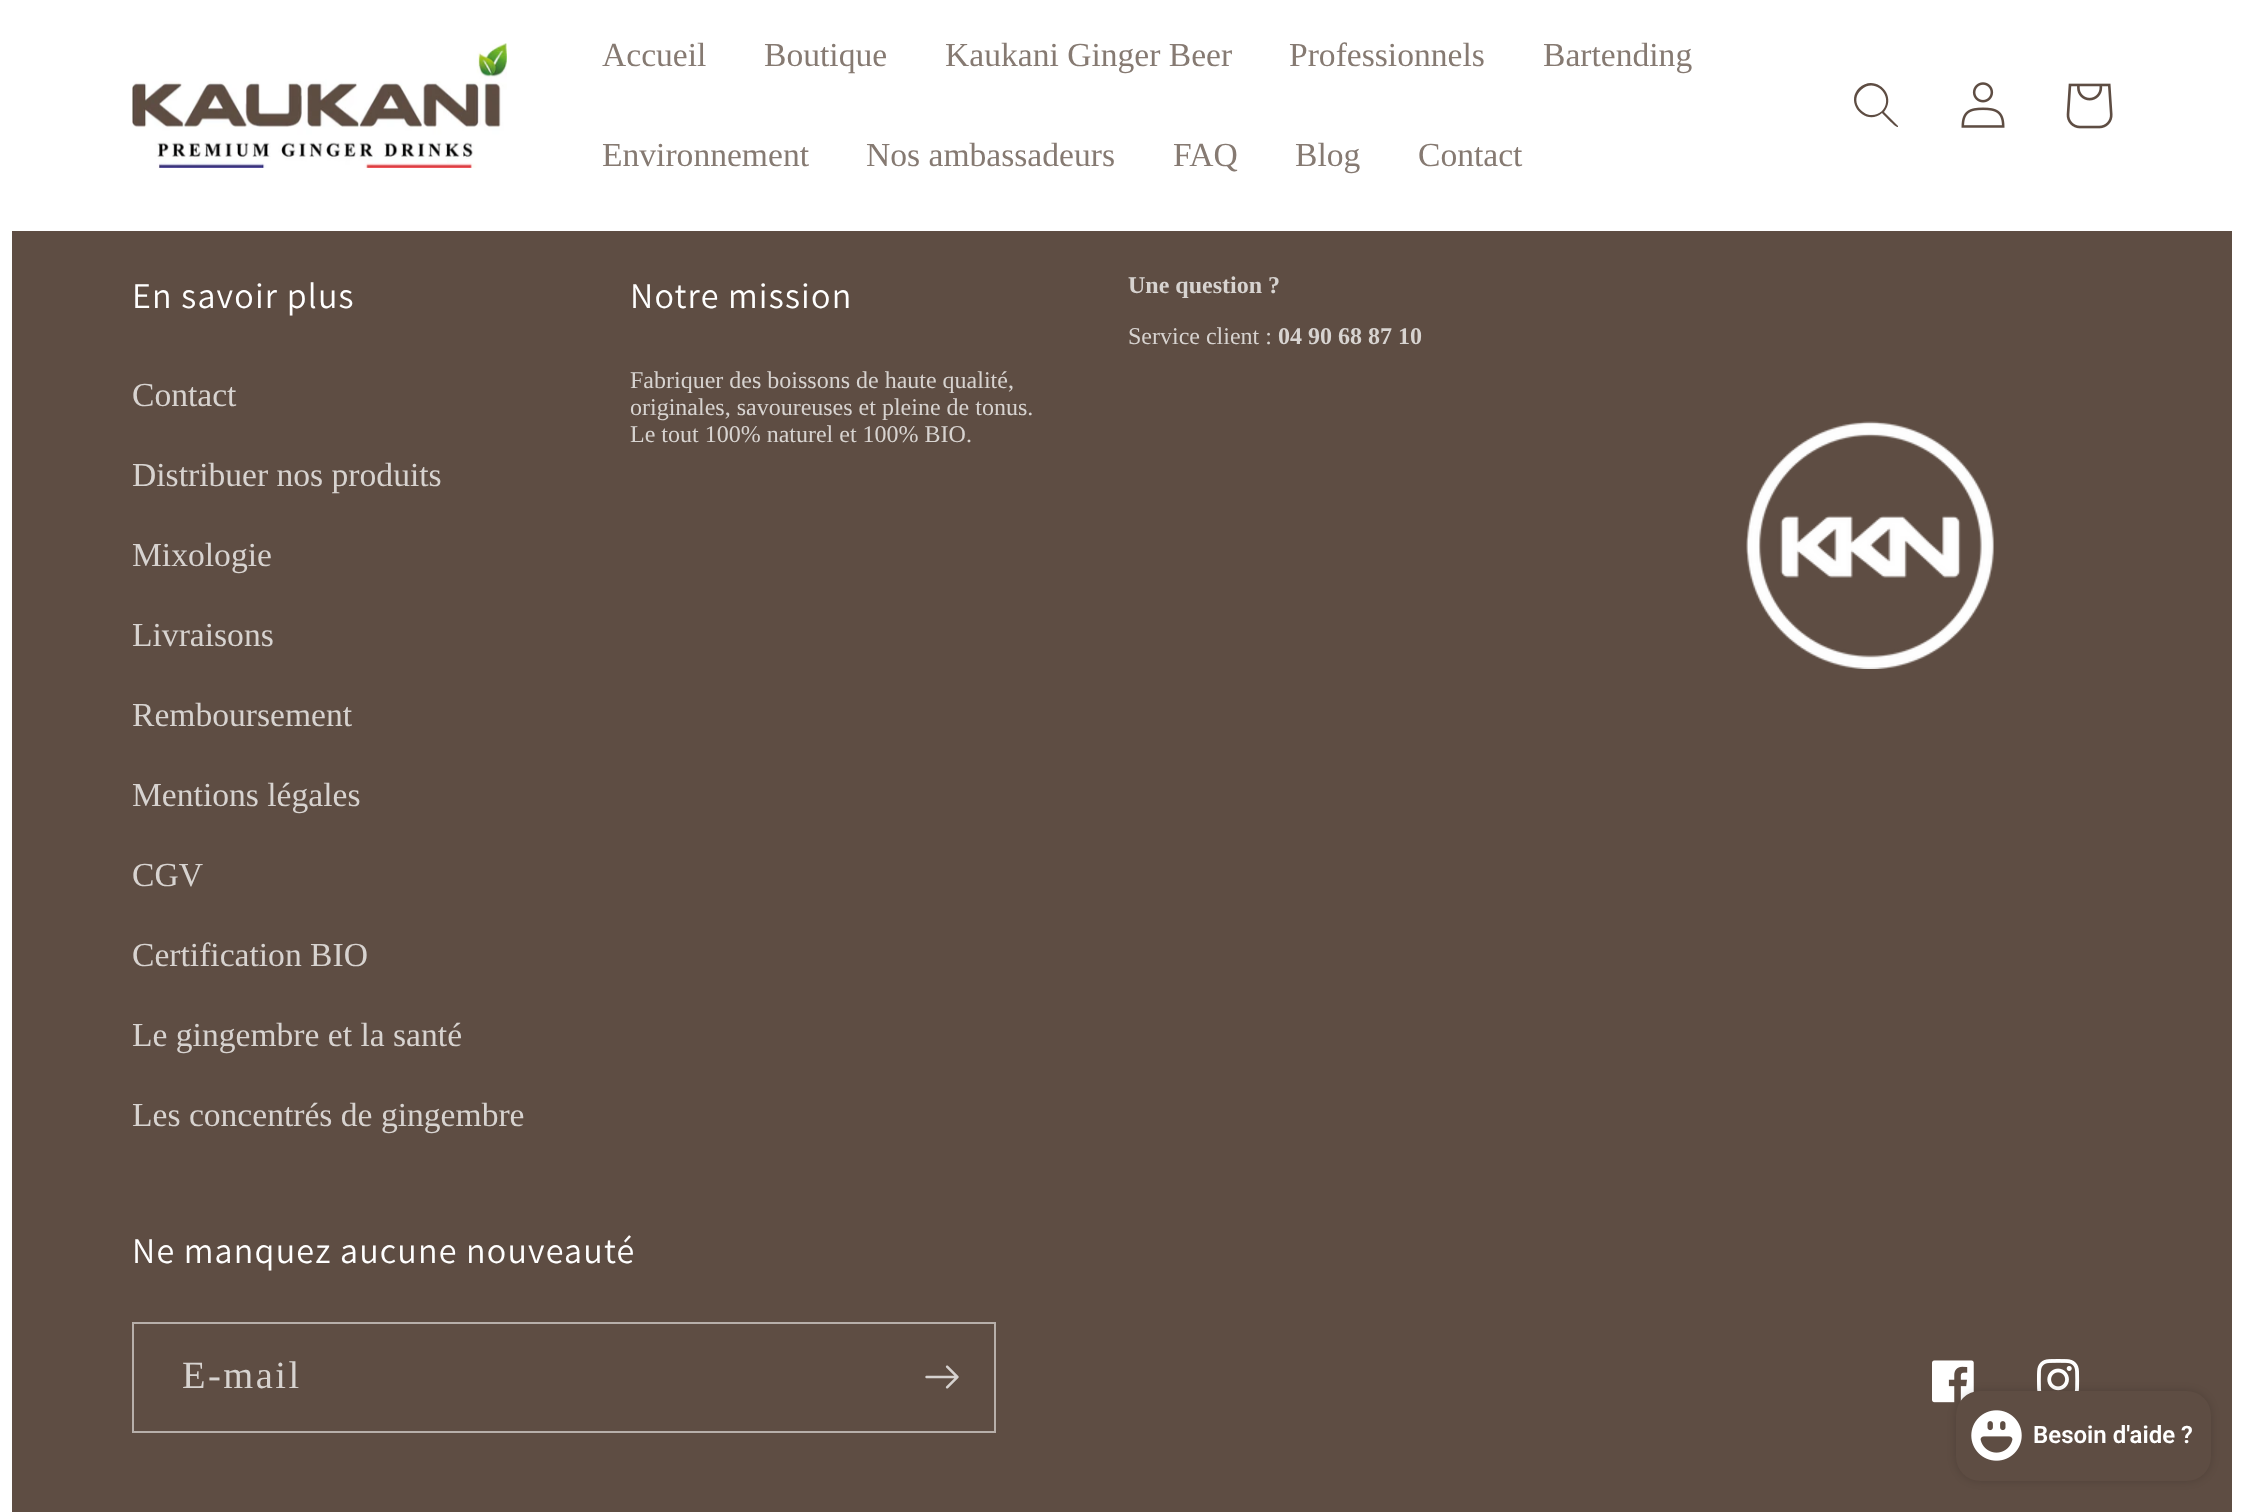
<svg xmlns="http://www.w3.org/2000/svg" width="2244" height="1512">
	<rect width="100%" height="100%" fill="#FFFFFF" />
	<image x="132" y="43" width="375" height="125" href="assets/img1.png" />
	<g font-family="Liberation Serif" font-size="33.6" fill="#867A72">
		<text x="602" y="66">Accueil</text>
		<text x="764" y="66">Boutique</text>
		<text x="945" y="66">Kaukani Ginger Beer</text>
		<text x="1289" y="66">Professionnels</text>
		<text x="1543" y="66">Bartending</text>
		<text x="602" y="166">Environnement</text>
		<text x="866" y="166">Nos ambassadeurs</text>
		<text x="1173" y="166">FAQ</text>
		<text x="1295" y="166">Blog</text>
		<text x="1418" y="166">Contact</text>
	</g>
	<path d="M1882 111C1868 124 1847 103 1861 90C1875 76 1895 97 1882 111ZM1882 113C1866 127 1844 103 1859 88C1875 73 1898 95 1884 112L1898 126V127C1896 128 1884 115 1882 113Z" fill="#5E4D43" fill-rule="evenodd" />
	<image x="1961" y="82" width="44" height="46" href="assets/img2.png" />
	<image x="2066" y="83" width="47" height="46" href="assets/img3.png" />
	<rect x="12" y="231" width="2220" height="1281" fill="#5E4D43" />
	<text x="132" y="308" font-family="Assistant" font-size="36" letter-spacing="1.2" fill="#FFFFFF">En savoir plus</text>
	<g font-family="Liberation Serif" font-size="33.6" fill="#D7D3D0">
		<text x="132" y="406">Contact</text>
		<text x="132" y="486">Distribuer nos produits</text>
		<text x="132" y="566">Mixologie</text>
		<text x="132" y="646">Livraisons</text>
		<text x="132" y="726">Remboursement</text>
		<text x="132" y="806">Mentions légales</text>
		<text x="132" y="886">CGV</text>
		<text x="132" y="966">Certification BIO</text>
		<text x="132" y="1046">Le gingembre et la santé</text>
		<text x="132" y="1126">Les concentrés de gingembre</text>
	</g>
	<text x="630" y="308" font-family="Assistant" font-size="36" letter-spacing="1.2" fill="#FFFFFF">Notre mission</text>
	<g font-family="Liberation Serif" font-size="24" fill="#D7D3D0">
		<text x="630" y="388">Fabriquer des boissons de haute qualité,</text>
		<text x="630" y="415">originales, savoureuses et pleine de tonus.</text>
		<text x="630" y="442">Le tout 100% naturel et 100% BIO.</text>
	</g>
	<text x="1128" y="293" font-family="Liberation Serif" font-size="24" font-weight="700" fill="#D7D3D0">Une question ?</text>
	<text x="1128" y="344" font-family="Liberation Serif" font-size="24" fill="#D7D3D0">Service client :</text>
	<text x="1278" y="344" font-family="Liberation Serif" font-size="24" font-weight="700" fill="#D7D3D0">04 90 68 87 10</text>
	<image x="1746" y="421" width="248" height="248" href="assets/img4.png" />
	<text x="132" y="1263" font-family="Assistant" font-size="36" letter-spacing="1.2" fill="#FFFFFF">Ne manquez aucune nouveauté</text>
	<rect x="133" y="1323" width="862" height="109" fill="none" stroke="#B7AFAA" stroke-width="2" />
	<text x="182" y="1388" font-family="Liberation Serif" font-size="38.5" letter-spacing="2.5" fill="#D7D3D0">E-mail</text>
	<image x="925" y="1365" width="34" height="24" href="assets/img5.png" />
	<image x="1932" y="1360" width="42" height="43" href="assets/img6.png" />
	<image x="2037" y="1359" width="43" height="32" href="assets/img7.png" />
	<rect x="1956" y="1391" width="255" height="90" rx="24" fill="#000000" fill-opacity="0.15" filter="blur(4px)" />
	<rect x="1956" y="1391" width="255" height="90" rx="24" fill="#5E4D43" />
	<image x="1971" y="1410" width="51" height="51" href="assets/img8.png" />
	<text x="2033" y="1443" font-family="Roboto" font-size="24" font-weight="600" fill="#FFFFFF">Besoin d'aide ?</text>
</svg>
